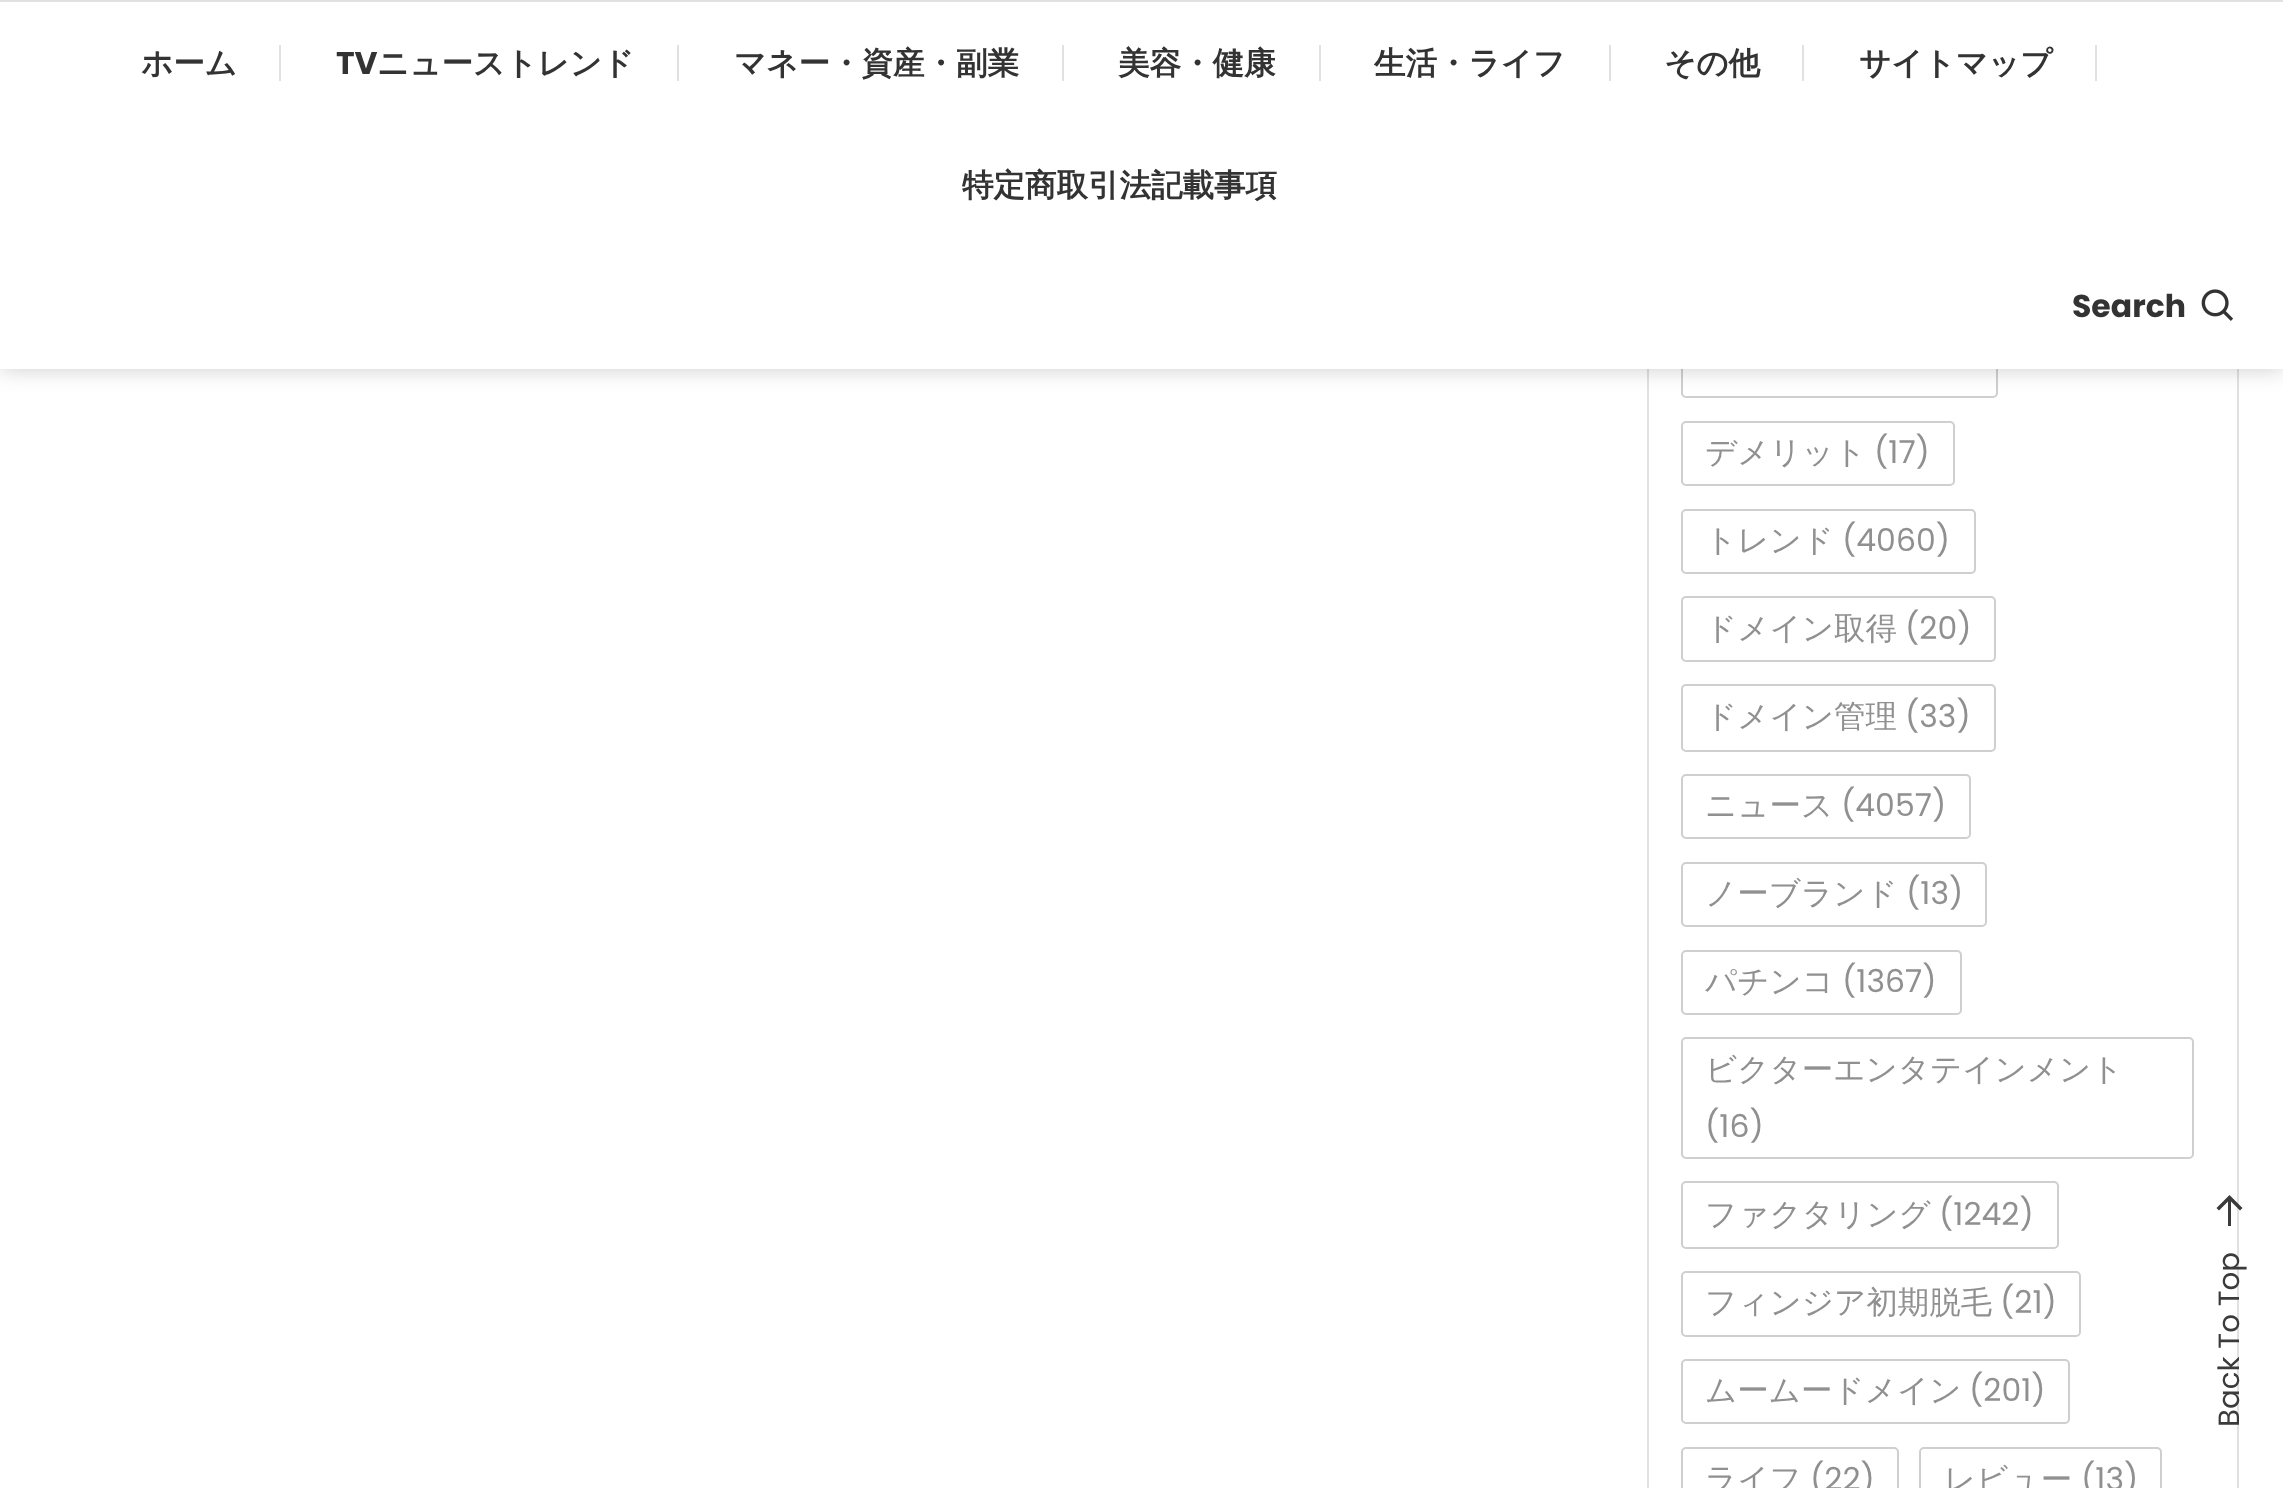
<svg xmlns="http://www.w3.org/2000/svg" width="2283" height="1488">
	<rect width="100%" height="100%" fill="#FFFFFF" />
	<rect x="1648" y="-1" width="590" height="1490" fill="none" stroke="#E1E1E1" stroke-width="2" />
	<rect x="1682" y="334" width="315" height="63" rx="4" fill="none" stroke="#CFCFCF" stroke-width="2" />
	<rect x="0" y="0" width="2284" height="369" fill="#000000" fill-opacity="0.2" filter="blur(11px)" />
	<rect x="0" y="2" width="2283" height="367" fill="#FFFFFF" />
	<rect x="0" y="0" width="2283" height="2" fill="#E1E1E1" />
	<text x="141" y="74" font-family="WenQuanYi Zen Hei" font-size="31.5" font-weight="700" fill="#333333">ホーム</text>
	<rect x="279" y="45" width="2" height="36" fill="#E1E1E1" />
	<text x="336" y="74" font-family="Poppins" font-size="31.5" font-weight="700" fill="#333333">TV</text>
	<text x="377" y="74" font-family="WenQuanYi Zen Hei" font-size="31.5" font-weight="700" fill="#333333">ニューストレンド</text>
	<rect x="677" y="45" width="2" height="36" fill="#E1E1E1" />
	<text x="734" y="74" font-family="WenQuanYi Zen Hei" font-size="31.5" font-weight="700" fill="#333333">マネー・資産・副業</text>
	<rect x="1062" y="45" width="2" height="36" fill="#E1E1E1" />
	<text x="1118" y="74" font-family="WenQuanYi Zen Hei" font-size="31.5" font-weight="700" fill="#333333">美容・健康</text>
	<rect x="1319" y="45" width="2" height="36" fill="#E1E1E1" />
	<text x="1374" y="74" font-family="WenQuanYi Zen Hei" font-size="31.5" font-weight="700" fill="#333333">生活・ライフ</text>
	<rect x="1609" y="45" width="2" height="36" fill="#E1E1E1" />
	<text x="1664" y="74" font-family="WenQuanYi Zen Hei" font-size="31.5" font-weight="700" fill="#333333">その他</text>
	<rect x="1802" y="45" width="2" height="36" fill="#E1E1E1" />
	<text x="1859" y="74" font-family="WenQuanYi Zen Hei" font-size="31.5" font-weight="700" fill="#333333">サイトマップ</text>
	<rect x="2095" y="45" width="2" height="36" fill="#E1E1E1" />
	<text x="962" y="196" font-family="WenQuanYi Zen Hei" font-size="31.5" font-weight="700" fill="#333333">特定商取引法記載事項</text>
	<text x="2072" y="317" font-family="Poppins" font-size="31.5" font-weight="700" fill="#333333">Search</text>
	<image x="2201" y="289" width="33" height="32" href="assets/img1.png" />
	<rect x="1682" y="422" width="272" height="63" rx="4" fill="none" stroke="#CFCFCF" stroke-width="2" />
	<text x="1705" y="463" font-family="WenQuanYi Zen Hei" font-size="31.5" font-weight="500" fill="#909090">デメリット</text>
	<text x="1874" y="463" font-family="Poppins" font-size="31.5" fill="#909090">(17)</text>
	<rect x="1682" y="510" width="293" height="63" rx="4" fill="none" stroke="#CFCFCF" stroke-width="2" />
	<text x="1705" y="551" font-family="WenQuanYi Zen Hei" font-size="31.5" font-weight="500" fill="#909090">トレンド</text>
	<text x="1842" y="551" font-family="Poppins" font-size="31.5" fill="#909090">(4060)</text>
	<rect x="1682" y="597" width="313" height="64" rx="4" fill="none" stroke="#CFCFCF" stroke-width="2" />
	<text x="1705" y="639" font-family="WenQuanYi Zen Hei" font-size="31.5" font-weight="500" fill="#909090">ドメイン取得</text>
	<text x="1905" y="639" font-family="Poppins" font-size="31.5" fill="#909090">(20)</text>
	<rect x="1682" y="685" width="313" height="66" rx="4" fill="none" stroke="#CFCFCF" stroke-width="2" />
	<text x="1705" y="727" font-family="WenQuanYi Zen Hei" font-size="31.5" font-weight="500" fill="#909090">ドメイン管理</text>
	<text x="1905" y="727" font-family="Poppins" font-size="31.5" fill="#909090">(33)</text>
	<rect x="1682" y="775" width="288" height="63" rx="4" fill="none" stroke="#CFCFCF" stroke-width="2" />
	<text x="1705" y="816" font-family="WenQuanYi Zen Hei" font-size="31.5" font-weight="500" fill="#909090">ニュース</text>
	<text x="1841" y="816" font-family="Poppins" font-size="31.5" fill="#909090">(4057)</text>
	<rect x="1682" y="863" width="304" height="63" rx="4" fill="none" stroke="#CFCFCF" stroke-width="2" />
	<text x="1705" y="904" font-family="WenQuanYi Zen Hei" font-size="31.5" font-weight="500" fill="#909090">ノーブランド</text>
	<text x="1906" y="904" font-family="Poppins" font-size="31.5" fill="#909090">(13)</text>
	<rect x="1682" y="951" width="279" height="63" rx="4" fill="none" stroke="#CFCFCF" stroke-width="2" />
	<text x="1705" y="992" font-family="WenQuanYi Zen Hei" font-size="31.5" font-weight="500" fill="#909090">パチンコ</text>
	<text x="1842" y="992" font-family="Poppins" font-size="31.5" fill="#909090">(1367)</text>
	<rect x="1682" y="1038" width="511" height="120" rx="4" fill="none" stroke="#CFCFCF" stroke-width="2" />
	<text x="1705" y="1080" font-family="WenQuanYi Zen Hei" font-size="31.5" font-weight="500" fill="#909090">ビクターエンタテインメント</text>
	<text x="1705" y="1137" font-family="Poppins" font-size="31.5" fill="#909090">(16)</text>
	<rect x="1682" y="1182" width="376" height="66" rx="4" fill="none" stroke="#CFCFCF" stroke-width="2" />
	<text x="1705" y="1225" font-family="WenQuanYi Zen Hei" font-size="31.5" font-weight="500" fill="#909090">ファクタリング</text>
	<text x="1939" y="1225" font-family="Poppins" font-size="31.5" fill="#909090">(1242)</text>
	<rect x="1682" y="1272" width="398" height="64" rx="4" fill="none" stroke="#CFCFCF" stroke-width="2" />
	<text x="1705" y="1313" font-family="WenQuanYi Zen Hei" font-size="31.5" font-weight="500" fill="#909090">フィンジア初期脱毛</text>
	<text x="2000" y="1313" font-family="Poppins" font-size="31.5" fill="#909090">(21)</text>
	<rect x="1682" y="1360" width="387" height="63" rx="4" fill="none" stroke="#CFCFCF" stroke-width="2" />
	<text x="1705" y="1401" font-family="WenQuanYi Zen Hei" font-size="31.5" font-weight="500" fill="#909090">ムームードメイン</text>
	<text x="1969" y="1401" font-family="Poppins" font-size="31.5" fill="#909090">(201)</text>
	<rect x="1682" y="1448" width="216" height="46" rx="4" fill="none" stroke="#CFCFCF" stroke-width="2" />
	<text x="1705" y="1490" font-family="WenQuanYi Zen Hei" font-size="31.5" font-weight="500" fill="#909090">ライフ</text>
	<text x="1810" y="1490" font-family="Poppins" font-size="31.5" fill="#909090">(22)</text>
	<rect x="1920" y="1448" width="241" height="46" rx="4" fill="none" stroke="#CFCFCF" stroke-width="2" />
	<text x="1944" y="1490" font-family="WenQuanYi Zen Hei" font-size="31.5" font-weight="500" fill="#909090">レビュー</text>
	<text x="2081" y="1490" font-family="Poppins" font-size="31.5" fill="#909090">(13)</text>
	<path d="M2231 1226V1201.5L2240 1210.5L2242.5 1208L2229.5 1195L2216.5 1208L2219 1210.5L2228 1201.5V1226Z" fill="#3B3B3B" />
	<text x="2239" y="1427" transform="rotate(-90 2239 1427)" font-family="Poppins" font-size="29.25" fill="#3B3B3B">Back To Top</text>
</svg>
